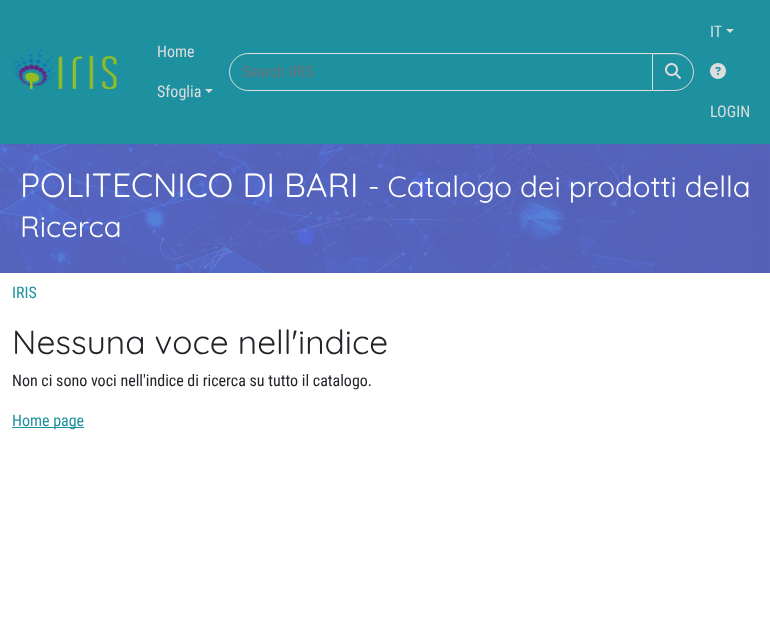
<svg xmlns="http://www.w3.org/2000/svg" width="770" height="638">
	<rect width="100%" height="100%" fill="#FFFFFF" />
	<rect x="0" y="0" width="770" height="144" fill="#1D919F" />
	<image x="13" y="49" width="104" height="40" href="assets/img1.png" />
	<g font-family="Roboto Condensed" font-size="16" fill="#DDDDDD">
		<text x="157" y="57">Home</text>
		<text x="157" y="97">Sfoglia</text>
	</g>
	<path d="M205 89H213L209 93Z" fill="#DDDDDD" />
	<path d="M248 53.5H652.5V90.5H248C238 90.5 229.5 82 229.5 72C229.5 62 238 53.5 248 53.5Z" fill="none" stroke="#DDDDDD" />
	<text x="242" y="77" font-family="Roboto Condensed" font-size="16" fill="#6C757D">Search IRIS</text>
	<rect x="652" y="54" width="42" height="38" rx="19" fill="#000000" fill-opacity="0.07" filter="blur(0.5px)" />
	<path d="M652 53H675C685.5 53 694 61.5 694 72C694 82.5 685.5 91 675 91H652Z" fill="#1D919F" />
	<path d="M653 55H675C685 55 693 63 693 72C693 64 687 56 679 54H653Z" fill="#3FA2AD" />
	<path d="M652.5 53.5H675C685 53.5 693.5 62 693.5 72C693.5 82 685 90.5 675 90.5H652.5Z" fill="none" stroke="#DDDDDD" />
	<image x="665" y="63" width="16" height="16" href="assets/img2.png" />
	<text x="710" y="37" font-family="Roboto Condensed" font-size="16" fill="#DDDDDD">IT</text>
	<path d="M726 29H734L730 33Z" fill="#DDDDDD" />
	<image x="710" y="63" width="16" height="16" href="assets/img3.png" />
	<text x="710" y="117" font-family="Roboto Condensed" font-size="16" fill="#DDDDDD">LOGIN</text>
	<image x="0" y="144" width="770" height="129" href="assets/img4.png" />
	<text x="20" y="197" font-family="Quicksand" font-size="33.5" font-weight="300" fill="#FFFFFF">POLITECNICO DI BARI</text>
	<g font-family="Quicksand" font-size="29.4" font-weight="300" fill="#FFFFFF">
		<text x="368" y="197">- Catalogo dei prodotti della</text>
		<text x="20" y="237">Ricerca</text>
	</g>
	<text x="12" y="298" font-family="Roboto Condensed" font-size="16" fill="#1D919F">IRIS</text>
	<text x="12" y="354" font-family="Quicksand" font-size="33.5" font-weight="300" fill="#212529">Nessuna voce nell'indice</text>
	<text x="12" y="386" font-family="Roboto Condensed" font-size="16" fill="#212529">Non ci sono voci nell'indice di ricerca su tutto il catalogo.</text>
	<rect x="12" y="427" width="72" height="1" fill="#1D919F" />
	<text x="12" y="426" font-family="Roboto Condensed" font-size="16" fill="#1D919F">Home page</text>
</svg>
